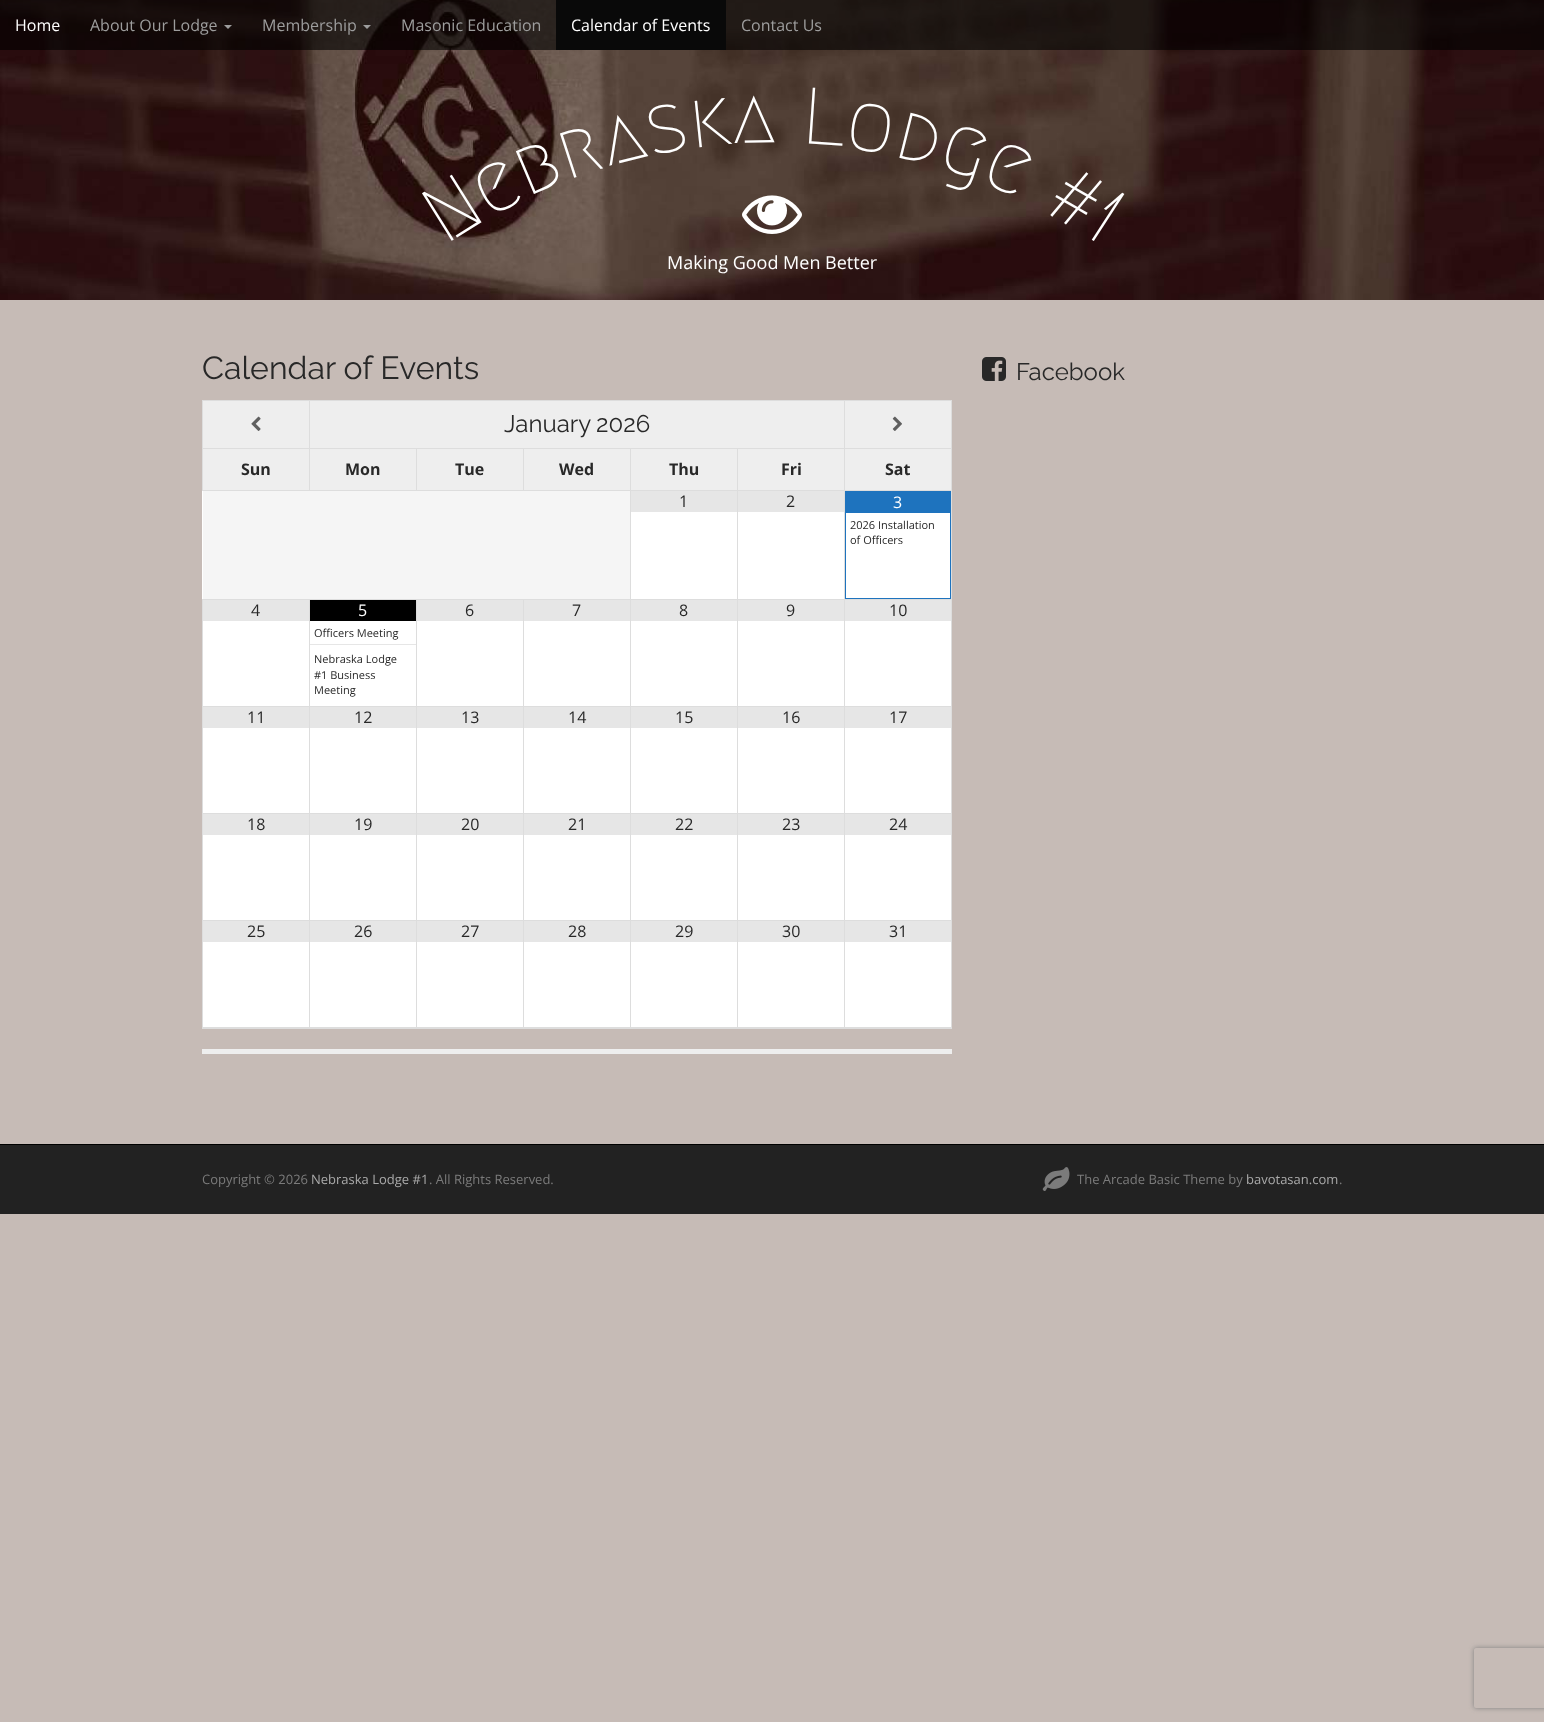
<svg xmlns="http://www.w3.org/2000/svg" width="1544" height="1722">
	<defs>
		<clipPath id="clip1"><path d="M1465 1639H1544V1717H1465ZM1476 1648H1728C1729 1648 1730 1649 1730 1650V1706C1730 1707 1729 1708 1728 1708H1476C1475 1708 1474 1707 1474 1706V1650C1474 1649 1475 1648 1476 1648Z" clip-rule="evenodd" /></clipPath>
	</defs>
	<rect width="100%" height="100%" fill="#C6BBB6" />
	<image x="0" y="0" width="1544" height="300" href="assets/img1.png" />
	<rect x="0" y="0" width="1544" height="50" fill="#000000" fill-opacity="0.6" />
	<text x="15" y="31" font-family="Open Sans" font-size="16" fill="#FFFFFF">Home</text>
	<text x="90" y="31" font-family="Open Sans" font-size="16" fill="#9D9D9D">About Our Lodge</text>
	<path d="M224 25H232L228 29Z" fill="#9D9D9D" />
	<text x="262" y="31" font-family="Open Sans" font-size="16" fill="#9D9D9D">Membership</text>
	<path d="M363 25H371L367 29Z" fill="#9D9D9D" />
	<text x="401" y="31" font-family="Open Sans" font-size="16" fill="#9D9D9D">Masonic Education</text>
	<rect x="556" y="0" width="170" height="50" fill="#090909" />
	<text x="571" y="31" font-family="Open Sans" font-size="16" fill="#FFFFFF">Calendar of Events</text>
	<text x="741" y="31" font-family="Open Sans" font-size="16" fill="#9D9D9D">Contact Us</text>
	<g font-family="Megrim" font-size="80" font-weight="500" fill="#FFFFFF">
		<text x="445" y="245" transform="rotate(-32 445 245)">N</text>
		<text x="488" y="218" transform="rotate(-27 488 218)">e</text>
		<text x="527" y="197" transform="rotate(-23 527 197)">b</text>
		<text x="567" y="180" transform="rotate(-18 567 180)">r</text>
		<text x="608" y="166" transform="rotate(-14 608 166)">a</text>
		<text x="650" y="155" transform="rotate(-10 650 155)">s</text>
		<text x="692" y="148" transform="rotate(-6 692 148)">k</text>
		<text x="733" y="143" transform="rotate(-1 733 143)">a</text>
		<text x="801" y="143" transform="rotate(4 801 143)">L</text>
		<text x="843" y="147" transform="rotate(9 843 147)">o</text>
		<text x="892" y="156" transform="rotate(14 892 156)">d</text>
		<text x="936" y="166" transform="rotate(18 936 166)">g</text>
		<text x="979" y="181" transform="rotate(23 979 181)">e</text>
		<text x="1042" y="211" transform="rotate(30 1042 211)">#</text>
		<text x="1083" y="234" transform="rotate(33 1083 234)">1</text>
	</g>
	<image x="742" y="195" width="60" height="39" href="assets/img2.png" />
	<text x="667" y="269" font-family="Open Sans" font-size="18" fill="#FFFFFF">Making Good Men Better</text>
	<rect x="202" y="1049" width="750" height="5" fill="#EEEEEE" />
	<text x="202" y="379" font-family="Raleway" font-size="32" font-weight="100" fill="#282828">Calendar of Events</text>
	<rect x="202" y="491" width="749" height="536" fill="#FFFFFF" />
	<rect x="203" y="401" width="106" height="47" fill="#EEEEEE" />
	<rect x="844" y="400" width="108" height="1" fill="#DDDDDD" />
	<rect x="844" y="448" width="108" height="1" fill="#DDDDDD" />
	<rect x="844" y="490" width="108" height="1" fill="#DDDDDD" />
	<rect x="844" y="599" width="108" height="1" fill="#DDDDDD" />
	<rect x="844" y="706" width="108" height="1" fill="#DDDDDD" />
	<rect x="844" y="813" width="108" height="1" fill="#DDDDDD" />
	<rect x="844" y="920" width="108" height="1" fill="#DDDDDD" />
	<rect x="951" y="920" width="1" height="108" fill="#DDDDDD" />
	<rect x="844" y="1027" width="108" height="1" fill="#DDDDDD" />
	<rect x="844" y="920" width="1" height="108" fill="#DDDDDD" />
	<rect x="737" y="920" width="108" height="1" fill="#DDDDDD" />
	<rect x="844" y="813" width="1" height="108" fill="#DDDDDD" />
	<rect x="737" y="813" width="108" height="1" fill="#DDDDDD" />
	<rect x="844" y="706" width="1" height="108" fill="#DDDDDD" />
	<rect x="737" y="706" width="108" height="1" fill="#DDDDDD" />
	<rect x="844" y="599" width="1" height="108" fill="#DDDDDD" />
	<rect x="737" y="599" width="108" height="1" fill="#DDDDDD" />
	<rect x="844" y="490" width="1" height="110" fill="#DDDDDD" />
	<rect x="737" y="490" width="108" height="1" fill="#DDDDDD" />
	<rect x="844" y="448" width="1" height="43" fill="#DDDDDD" />
	<rect x="737" y="448" width="108" height="1" fill="#DDDDDD" />
	<rect x="844" y="400" width="1" height="49" fill="#DDDDDD" />
	<rect x="309" y="400" width="536" height="1" fill="#DDDDDD" />
	<rect x="737" y="1027" width="108" height="1" fill="#DDDDDD" />
	<rect x="737" y="920" width="1" height="108" fill="#DDDDDD" />
	<rect x="630" y="920" width="108" height="1" fill="#DDDDDD" />
	<rect x="737" y="813" width="1" height="108" fill="#DDDDDD" />
	<rect x="630" y="813" width="108" height="1" fill="#DDDDDD" />
	<rect x="737" y="706" width="1" height="108" fill="#DDDDDD" />
	<rect x="630" y="706" width="108" height="1" fill="#DDDDDD" />
	<rect x="737" y="599" width="1" height="108" fill="#DDDDDD" />
	<rect x="630" y="599" width="108" height="1" fill="#DDDDDD" />
	<rect x="737" y="490" width="1" height="110" fill="#DDDDDD" />
	<rect x="630" y="490" width="108" height="1" fill="#DDDDDD" />
	<rect x="737" y="448" width="1" height="43" fill="#DDDDDD" />
	<rect x="630" y="448" width="108" height="1" fill="#DDDDDD" />
	<rect x="630" y="1027" width="108" height="1" fill="#DDDDDD" />
	<rect x="630" y="920" width="1" height="108" fill="#DDDDDD" />
	<rect x="523" y="920" width="108" height="1" fill="#DDDDDD" />
	<rect x="630" y="813" width="1" height="108" fill="#DDDDDD" />
	<rect x="523" y="813" width="108" height="1" fill="#DDDDDD" />
	<rect x="630" y="706" width="1" height="108" fill="#DDDDDD" />
	<rect x="523" y="706" width="108" height="1" fill="#DDDDDD" />
	<rect x="630" y="599" width="1" height="108" fill="#DDDDDD" />
	<rect x="523" y="599" width="108" height="1" fill="#DDDDDD" />
	<rect x="630" y="490" width="1" height="110" fill="#DDDDDD" />
	<rect x="630" y="448" width="1" height="43" fill="#DDDDDD" />
	<rect x="523" y="448" width="108" height="1" fill="#DDDDDD" />
	<rect x="523" y="490" width="108" height="1" fill="#DDDDDD" />
	<rect x="523" y="448" width="1" height="43" fill="#DDDDDD" />
	<rect x="416" y="448" width="108" height="1" fill="#DDDDDD" />
	<rect x="416" y="490" width="108" height="1" fill="#DDDDDD" />
	<rect x="416" y="448" width="1" height="43" fill="#DDDDDD" />
	<rect x="309" y="448" width="108" height="1" fill="#DDDDDD" />
	<rect x="309" y="490" width="108" height="1" fill="#DDDDDD" />
	<rect x="309" y="448" width="1" height="43" fill="#DDDDDD" />
	<rect x="202" y="448" width="108" height="1" fill="#DDDDDD" />
	<rect x="309" y="400" width="1" height="49" fill="#DDDDDD" />
	<rect x="202" y="400" width="108" height="1" fill="#DDDDDD" />
	<rect x="202" y="490" width="108" height="1" fill="#DDDDDD" />
	<rect x="202" y="448" width="1" height="43" fill="#DDDDDD" />
	<rect x="202" y="400" width="1" height="49" fill="#DDDDDD" />
	<image x="251" y="416" width="10" height="15" href="assets/img3.png" />
	<rect x="310" y="401" width="534" height="47" fill="#EEEEEE" />
	<g font-family="Raleway" font-size="24" font-weight="100" fill="#282828">
		<text x="504" y="432">January</text>
		<text x="596" y="432">2026</text>
	</g>
	<rect x="845" y="401" width="106" height="47" fill="#EEEEEE" />
	<rect x="951" y="813" width="1" height="108" fill="#DDDDDD" />
	<rect x="951" y="706" width="1" height="108" fill="#DDDDDD" />
	<rect x="951" y="599" width="1" height="108" fill="#DDDDDD" />
	<rect x="951" y="490" width="1" height="110" fill="#DDDDDD" />
	<rect x="951" y="448" width="1" height="43" fill="#DDDDDD" />
	<rect x="951" y="400" width="1" height="49" fill="#DDDDDD" />
	<image x="892" y="416" width="10" height="15" href="assets/img4.png" />
	<rect x="203" y="449" width="106" height="41" fill="#EEEEEE" />
	<text x="241" y="475" font-family="Open Sans" font-size="16" font-weight="700" fill="#282828">Sun</text>
	<rect x="310" y="449" width="106" height="41" fill="#EEEEEE" />
	<text x="345" y="475" font-family="Open Sans" font-size="16" font-weight="700" fill="#282828">Mon</text>
	<rect x="417" y="449" width="106" height="41" fill="#EEEEEE" />
	<text x="455" y="475" font-family="Open Sans" font-size="16" font-weight="700" fill="#282828">Tue</text>
	<rect x="524" y="449" width="106" height="41" fill="#EEEEEE" />
	<text x="559" y="475" font-family="Open Sans" font-size="16" font-weight="700" fill="#282828">Wed</text>
	<rect x="631" y="449" width="106" height="41" fill="#EEEEEE" />
	<text x="669" y="475" font-family="Open Sans" font-size="16" font-weight="700" fill="#282828">Thu</text>
	<rect x="738" y="449" width="106" height="41" fill="#EEEEEE" />
	<text x="781" y="475" font-family="Open Sans" font-size="16" font-weight="700" fill="#282828">Fri</text>
	<rect x="845" y="449" width="106" height="41" fill="#EEEEEE" />
	<text x="885" y="475" font-family="Open Sans" font-size="16" font-weight="700" fill="#282828">Sat</text>
	<rect x="203" y="491" width="427" height="108" fill="#F5F5F5" />
	<rect x="631" y="491" width="106" height="21" fill="#E6E6E6" />
	<text x="679" y="507" font-family="Open Sans" font-size="16" fill="#282828">1</text>
	<rect x="738" y="491" width="106" height="21" fill="#E6E6E6" />
	<text x="786" y="507" font-family="Open Sans" font-size="16" fill="#282828">2</text>
	<rect x="845.5" y="491.5" width="105" height="107" fill="none" stroke="#1E73BE" />
	<rect x="846" y="492" width="104" height="21" fill="#1E73BE" />
	<text x="893" y="508" font-family="Open Sans" font-size="16" fill="#FFFFFF">3</text>
	<g font-family="Open Sans" font-size="11" fill="#282828">
		<text x="850" y="529">2026 Installation</text>
		<text x="850" y="544">of Officers</text>
	</g>
	<rect x="523" y="1027" width="108" height="1" fill="#DDDDDD" />
	<rect x="523" y="920" width="1" height="108" fill="#DDDDDD" />
	<rect x="416" y="920" width="108" height="1" fill="#DDDDDD" />
	<rect x="523" y="813" width="1" height="108" fill="#DDDDDD" />
	<rect x="416" y="813" width="108" height="1" fill="#DDDDDD" />
	<rect x="523" y="706" width="1" height="108" fill="#DDDDDD" />
	<rect x="416" y="706" width="108" height="1" fill="#DDDDDD" />
	<rect x="523" y="599" width="1" height="108" fill="#DDDDDD" />
	<rect x="416" y="599" width="108" height="1" fill="#DDDDDD" />
	<rect x="416" y="1027" width="108" height="1" fill="#DDDDDD" />
	<rect x="416" y="920" width="1" height="108" fill="#DDDDDD" />
	<rect x="309" y="920" width="108" height="1" fill="#DDDDDD" />
	<rect x="416" y="813" width="1" height="108" fill="#DDDDDD" />
	<rect x="309" y="813" width="108" height="1" fill="#DDDDDD" />
	<rect x="416" y="706" width="1" height="108" fill="#DDDDDD" />
	<rect x="309" y="706" width="108" height="1" fill="#DDDDDD" />
	<rect x="416" y="599" width="1" height="108" fill="#DDDDDD" />
	<rect x="309" y="599" width="108" height="1" fill="#DDDDDD" />
	<rect x="309" y="1027" width="108" height="1" fill="#DDDDDD" />
	<rect x="309" y="920" width="1" height="108" fill="#DDDDDD" />
	<rect x="202" y="920" width="108" height="1" fill="#DDDDDD" />
	<rect x="309" y="813" width="1" height="108" fill="#DDDDDD" />
	<rect x="202" y="813" width="108" height="1" fill="#DDDDDD" />
	<rect x="309" y="706" width="1" height="108" fill="#DDDDDD" />
	<rect x="202" y="706" width="108" height="1" fill="#DDDDDD" />
	<rect x="309" y="599" width="1" height="108" fill="#DDDDDD" />
	<rect x="202" y="599" width="108" height="1" fill="#DDDDDD" />
	<rect x="202" y="1027" width="108" height="1" fill="#DDDDDD" />
	<rect x="202" y="920" width="1" height="108" fill="#DDDDDD" />
	<rect x="202" y="813" width="1" height="108" fill="#DDDDDD" />
	<rect x="202" y="706" width="1" height="108" fill="#DDDDDD" />
	<rect x="202" y="599" width="1" height="108" fill="#DDDDDD" />
	<rect x="203" y="600" width="106" height="21" fill="#E6E6E6" />
	<text x="251" y="616" font-family="Open Sans" font-size="16" fill="#282828">4</text>
	<rect x="310" y="600" width="106" height="21" fill="#000000" />
	<text x="358" y="616" font-family="Open Sans" font-size="16" fill="#FFFFFF">5</text>
	<rect x="310" y="644" width="106" height="1" fill="#E6E6E6" />
	<g font-family="Open Sans" font-size="11" fill="#282828">
		<text x="314" y="637">Officers Meeting</text>
		<text x="314" y="663">Nebraska Lodge</text>
		<text x="314" y="679">#1 Business</text>
		<text x="314" y="694">Meeting</text>
	</g>
	<rect x="417" y="600" width="106" height="21" fill="#E6E6E6" />
	<text x="465" y="616" font-family="Open Sans" font-size="16" fill="#282828">6</text>
	<rect x="524" y="600" width="106" height="21" fill="#E6E6E6" />
	<text x="572" y="616" font-family="Open Sans" font-size="16" fill="#282828">7</text>
	<rect x="631" y="600" width="106" height="21" fill="#E6E6E6" />
	<text x="679" y="616" font-family="Open Sans" font-size="16" fill="#282828">8</text>
	<rect x="738" y="600" width="106" height="21" fill="#E6E6E6" />
	<text x="786" y="616" font-family="Open Sans" font-size="16" fill="#282828">9</text>
	<rect x="845" y="600" width="106" height="21" fill="#E6E6E6" />
	<text x="889" y="616" font-family="Open Sans" font-size="16" fill="#282828">10</text>
	<rect x="203" y="707" width="106" height="21" fill="#E6E6E6" />
	<text x="247" y="723" font-family="Open Sans" font-size="16" fill="#282828">11</text>
	<rect x="310" y="707" width="106" height="21" fill="#E6E6E6" />
	<text x="354" y="723" font-family="Open Sans" font-size="16" fill="#282828">12</text>
	<rect x="417" y="707" width="106" height="21" fill="#E6E6E6" />
	<text x="461" y="723" font-family="Open Sans" font-size="16" fill="#282828">13</text>
	<rect x="524" y="707" width="106" height="21" fill="#E6E6E6" />
	<text x="568" y="723" font-family="Open Sans" font-size="16" fill="#282828">14</text>
	<rect x="631" y="707" width="106" height="21" fill="#E6E6E6" />
	<text x="675" y="723" font-family="Open Sans" font-size="16" fill="#282828">15</text>
	<rect x="738" y="707" width="106" height="21" fill="#E6E6E6" />
	<text x="782" y="723" font-family="Open Sans" font-size="16" fill="#282828">16</text>
	<rect x="845" y="707" width="106" height="21" fill="#E6E6E6" />
	<text x="889" y="723" font-family="Open Sans" font-size="16" fill="#282828">17</text>
	<rect x="203" y="814" width="106" height="21" fill="#E6E6E6" />
	<text x="247" y="830" font-family="Open Sans" font-size="16" fill="#282828">18</text>
	<rect x="310" y="814" width="106" height="21" fill="#E6E6E6" />
	<text x="354" y="830" font-family="Open Sans" font-size="16" fill="#282828">19</text>
	<rect x="417" y="814" width="106" height="21" fill="#E6E6E6" />
	<text x="461" y="830" font-family="Open Sans" font-size="16" fill="#282828">20</text>
	<rect x="524" y="814" width="106" height="21" fill="#E6E6E6" />
	<text x="568" y="830" font-family="Open Sans" font-size="16" fill="#282828">21</text>
	<rect x="631" y="814" width="106" height="21" fill="#E6E6E6" />
	<text x="675" y="830" font-family="Open Sans" font-size="16" fill="#282828">22</text>
	<rect x="738" y="814" width="106" height="21" fill="#E6E6E6" />
	<text x="782" y="830" font-family="Open Sans" font-size="16" fill="#282828">23</text>
	<rect x="845" y="814" width="106" height="21" fill="#E6E6E6" />
	<text x="889" y="830" font-family="Open Sans" font-size="16" fill="#282828">24</text>
	<rect x="203" y="921" width="106" height="21" fill="#E6E6E6" />
	<text x="247" y="937" font-family="Open Sans" font-size="16" fill="#282828">25</text>
	<rect x="310" y="921" width="106" height="21" fill="#E6E6E6" />
	<text x="354" y="937" font-family="Open Sans" font-size="16" fill="#282828">26</text>
	<rect x="417" y="921" width="106" height="21" fill="#E6E6E6" />
	<text x="461" y="937" font-family="Open Sans" font-size="16" fill="#282828">27</text>
	<rect x="524" y="921" width="106" height="21" fill="#E6E6E6" />
	<text x="568" y="937" font-family="Open Sans" font-size="16" fill="#282828">28</text>
	<rect x="631" y="921" width="106" height="21" fill="#E6E6E6" />
	<text x="675" y="937" font-family="Open Sans" font-size="16" fill="#282828">29</text>
	<rect x="738" y="921" width="106" height="21" fill="#E6E6E6" />
	<text x="782" y="937" font-family="Open Sans" font-size="16" fill="#282828">30</text>
	<rect x="845" y="921" width="106" height="21" fill="#E6E6E6" />
	<text x="889" y="937" font-family="Open Sans" font-size="16" fill="#282828">31</text>
	<rect x="202" y="1028" width="750" height="1" fill="#DDDDDD" />
	<image x="982" y="357" width="24" height="24" href="assets/img5.png" />
	<text x="1016" y="380" font-family="Raleway" font-size="24" font-weight="100" fill="#282828">Facebook</text>
	<rect x="0" y="1145" width="1544" height="69" fill="#222222" />
	<rect x="0" y="1144" width="1544" height="1" fill="#000000" />
	<text x="202" y="1184" font-family="Open Sans" font-size="13" fill="#7B7B7B">Copyright © 2026</text>
	<text x="311" y="1184" font-family="Open Sans" font-size="13" fill="#AAAAAA">Nebraska Lodge #1</text>
	<text x="429" y="1184" font-family="Open Sans" font-size="13" fill="#7B7B7B">. All Rights Reserved.</text>
	<image x="1042" y="1167" width="28" height="24" href="assets/img6.png" />
	<text x="1077" y="1184" font-family="Open Sans" font-size="13" fill="#7B7B7B">The Arcade Basic Theme by</text>
	<text x="1246" y="1184" font-family="Open Sans" font-size="13" fill="#AAAAAA">bavotasan.com</text>
	<text x="1339" y="1184" font-family="Open Sans" font-size="13" fill="#7B7B7B">.</text>
	<g clip-path="url(#clip1)">
		<rect x="1474" y="1648" width="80" height="60" rx="2" fill="#808080" filter="blur(2.5px)" />
	</g>
</svg>
